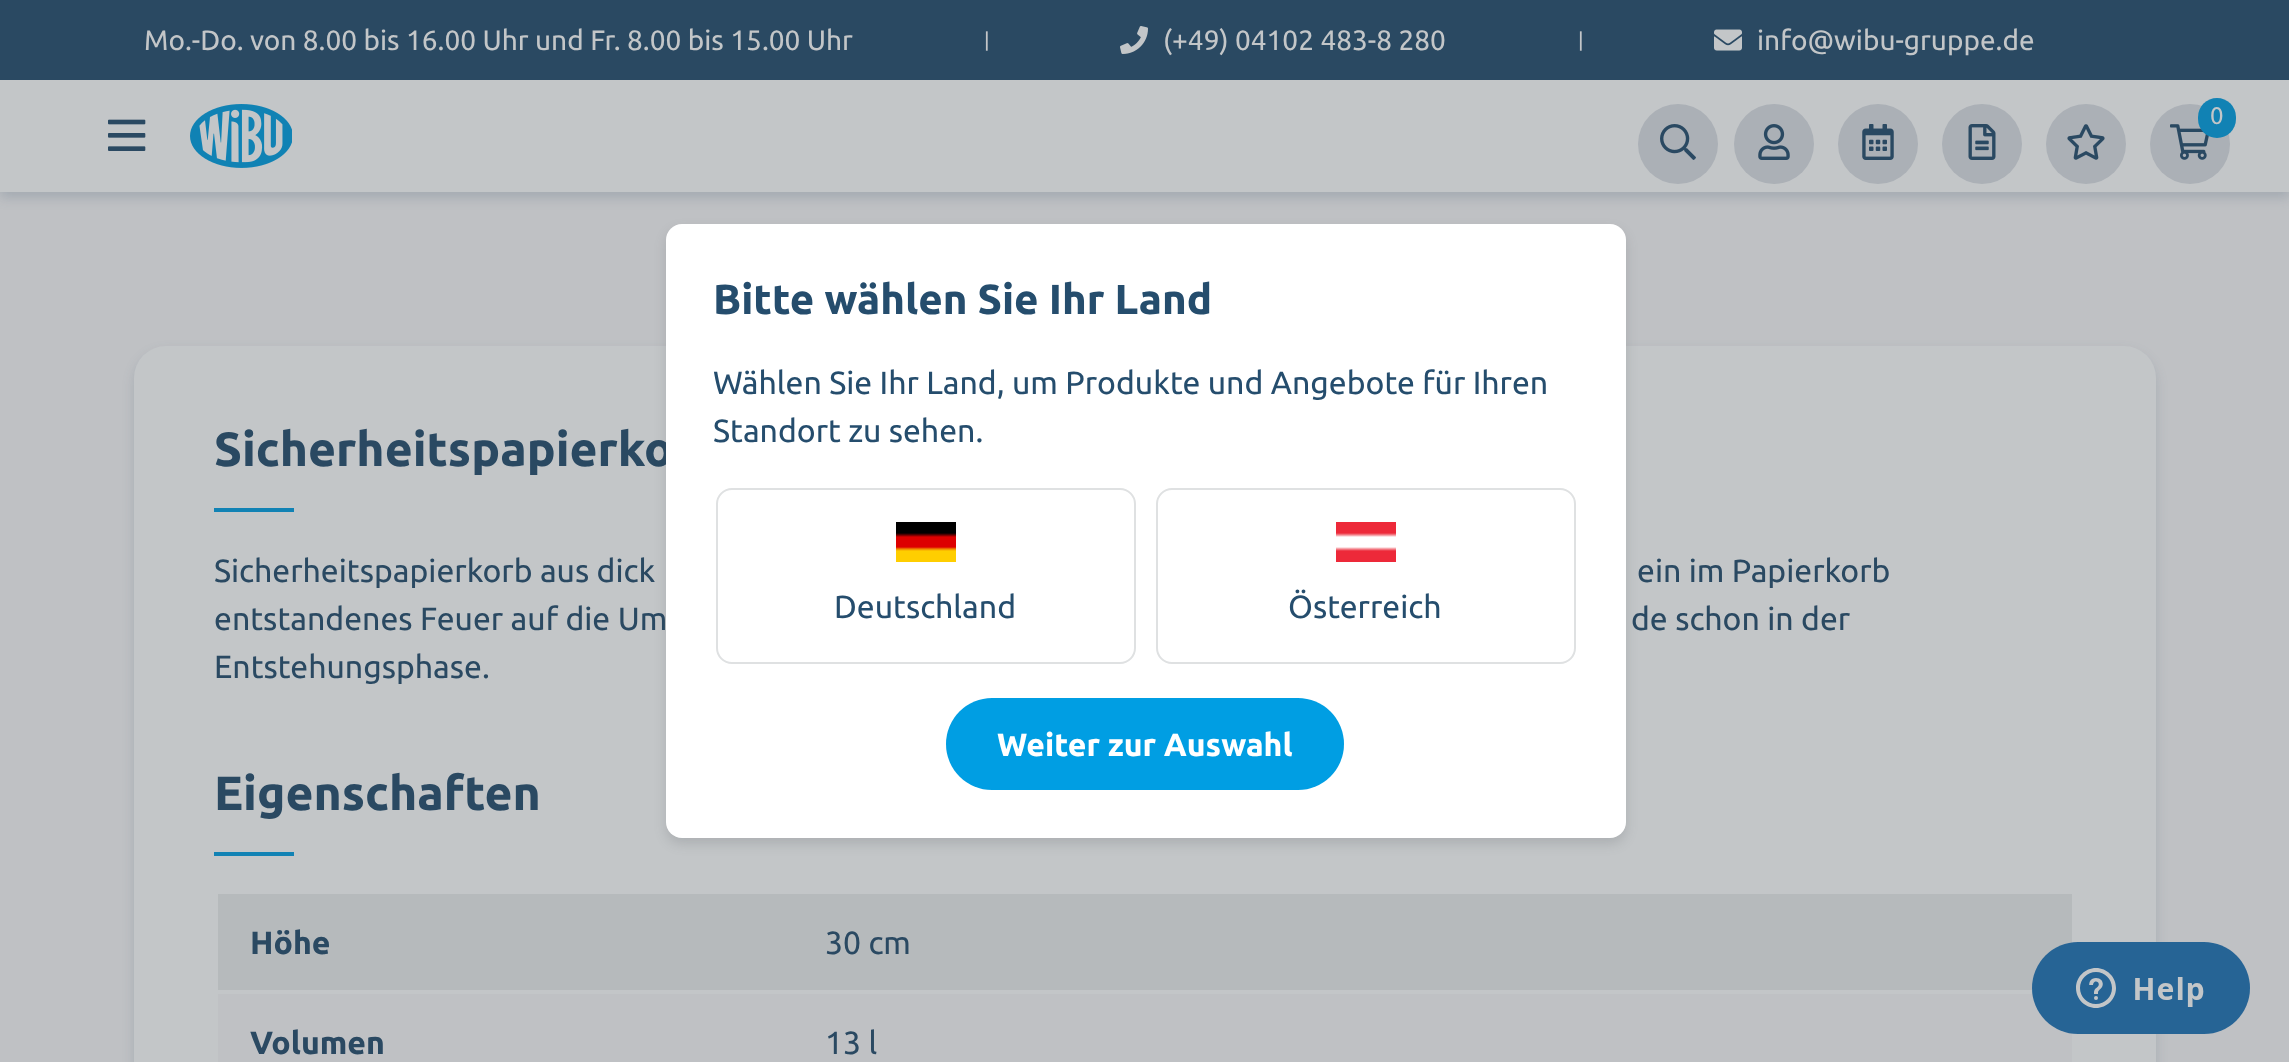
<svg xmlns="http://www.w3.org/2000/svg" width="2289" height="1062">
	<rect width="100%" height="100%" fill="#BFC1C4" />
	<rect x="0" y="6" width="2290" height="192" fill="#2A4962" fill-opacity="0.18" filter="blur(6px)" />
	<rect x="0" y="0" width="2289" height="80" fill="#2A4962" />
	<text x="144" y="50" font-family="Ubuntu" font-size="28" fill="#C3C6C8">Mo.-Do. von 8.00 bis 16.00 Uhr und Fr. 8.00 bis 15.00 Uhr</text>
	<text x="984" y="47" font-family="Ubuntu" font-size="20" fill="#C3C6C8">|</text>
	<image x="1120" y="26" width="28" height="28" href="assets/img1.png" />
	<text x="1163" y="50" font-family="Ubuntu" font-size="28" fill="#C3C6C8">(+49) 04102 483-8 280</text>
	<text x="1578" y="47" font-family="Ubuntu" font-size="20" fill="#C3C6C8">|</text>
	<image x="1714" y="29" width="28" height="22" href="assets/img2.png" />
	<text x="1757" y="50" font-family="Ubuntu" font-size="28" fill="#C3C6C8">info@wibu-gruppe.de</text>
	<rect x="0" y="80" width="2289" height="112" fill="#C3C6C8" />
	<image x="108" y="119" width="38" height="32" href="assets/img3.png" />
	<image x="190" y="104" width="102" height="64" href="assets/img4.png" />
	<circle cx="1678" cy="144" r="40" fill="#ABB0B6" />
	<image x="1660" y="124" width="36" height="36" href="assets/img5.png" />
	<circle cx="1774" cy="144" r="40" fill="#ABB0B6" />
	<image x="1758" y="124" width="32" height="36" href="assets/img6.png" />
	<circle cx="1878" cy="144" r="40" fill="#ABB0B6" />
	<image x="1862" y="124" width="32" height="36" href="assets/img7.png" />
	<circle cx="1982" cy="144" r="40" fill="#ABB0B6" />
	<image x="1968" y="124" width="28" height="36" href="assets/img8.png" />
	<circle cx="2086" cy="144" r="40" fill="#ABB0B6" />
	<image x="2067" y="124" width="38" height="36" href="assets/img9.png" />
	<circle cx="2190" cy="144" r="40" fill="#ABB0B6" />
	<image x="2170" y="124" width="39" height="36" href="assets/img10.png" />
	<rect x="2198" y="98" width="38" height="40" rx="19" fill="#1182B4" />
	<text x="2210" y="124" font-family="Ubuntu" font-size="24" fill="#C3C6C8">0</text>
	<rect x="134" y="352" width="2022" height="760" rx="32" fill="#2A4962" fill-opacity="0.16" filter="blur(6px)" />
	<rect x="134" y="346" width="2022" height="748" rx="32" fill="#C3C6C8" />
	<text x="214" y="466" font-family="Ubuntu" font-size="48" font-weight="700" fill="#2A4962">Sicherheitspapierko</text>
	<rect x="214" y="508" width="80" height="4" fill="#1182B4" />
	<g font-family="Ubuntu" font-size="32" fill="#2A4962">
		<text x="214" y="582">Sicherheitspapierkorb aus dick</text>
		<text x="1637" y="582">ein im Papierkorb</text>
		<text x="214" y="630">entstandenes Feuer auf die Um</text>
		<text x="1631" y="630">de schon in der</text>
		<text x="214" y="678">Entstehungsphase.</text>
	</g>
	<text x="214" y="810" font-family="Ubuntu" font-size="48" font-weight="700" fill="#2A4962">Eigenschaften</text>
	<rect x="214" y="852" width="80" height="4" fill="#1182B4" />
	<rect x="218" y="894" width="1854" height="96" fill="#B6BABC" />
	<text x="250" y="954" font-family="Ubuntu" font-size="32" font-weight="700" fill="#2A4962">Höhe</text>
	<text x="825" y="954" font-family="Ubuntu" font-size="32" fill="#2A4962">30 cm</text>
	<rect x="218" y="994" width="1854" height="68" fill="#BFC1C4" />
	<text x="250" y="1054" font-family="Ubuntu" font-size="32" font-weight="700" fill="#2A4962">Volumen</text>
	<text x="825" y="1054" font-family="Ubuntu" font-size="32" fill="#2A4962">13 l</text>
	<rect x="666" y="230" width="960" height="614" rx="16" fill="#364146" fill-opacity="0.16" filter="blur(6px)" />
	<rect x="666" y="224" width="960" height="614" rx="16" fill="#FFFFFF" />
	<text x="713" y="314" font-family="Ubuntu" font-size="42" font-weight="700" fill="#254D6D">Bitte wählen Sie Ihr Land</text>
	<g font-family="Ubuntu" font-size="32" fill="#254D6D">
		<text x="713" y="394">Wählen Sie Ihr Land, um Produkte und Angebote für Ihren</text>
		<text x="713" y="442">Standort zu sehen.</text>
	</g>
	<rect x="717" y="489" width="418" height="174" rx="15" fill="none" stroke="#DFE1E2" stroke-width="2" />
	<image x="896" y="522" width="60" height="40" href="assets/img11.png" />
	<text x="834" y="618" font-family="Ubuntu" font-size="32" fill="#254D6D">Deutschland</text>
	<rect x="1157" y="489" width="418" height="174" rx="15" fill="none" stroke="#DFE1E2" stroke-width="2" />
	<image x="1336" y="522" width="60" height="40" href="assets/img12.png" />
	<text x="1288" y="618" font-family="Ubuntu" font-size="32" fill="#254D6D">Österreich</text>
	<rect x="946" y="698" width="398" height="92" rx="46" fill="#009EE3" />
	<text x="997" y="756" font-family="Ubuntu" font-size="32" font-weight="700" fill="#FFFFFF">Weiter zur Auswahl</text>
	<image x="2032" y="942" width="218" height="92" href="assets/img13.png" />
</svg>
